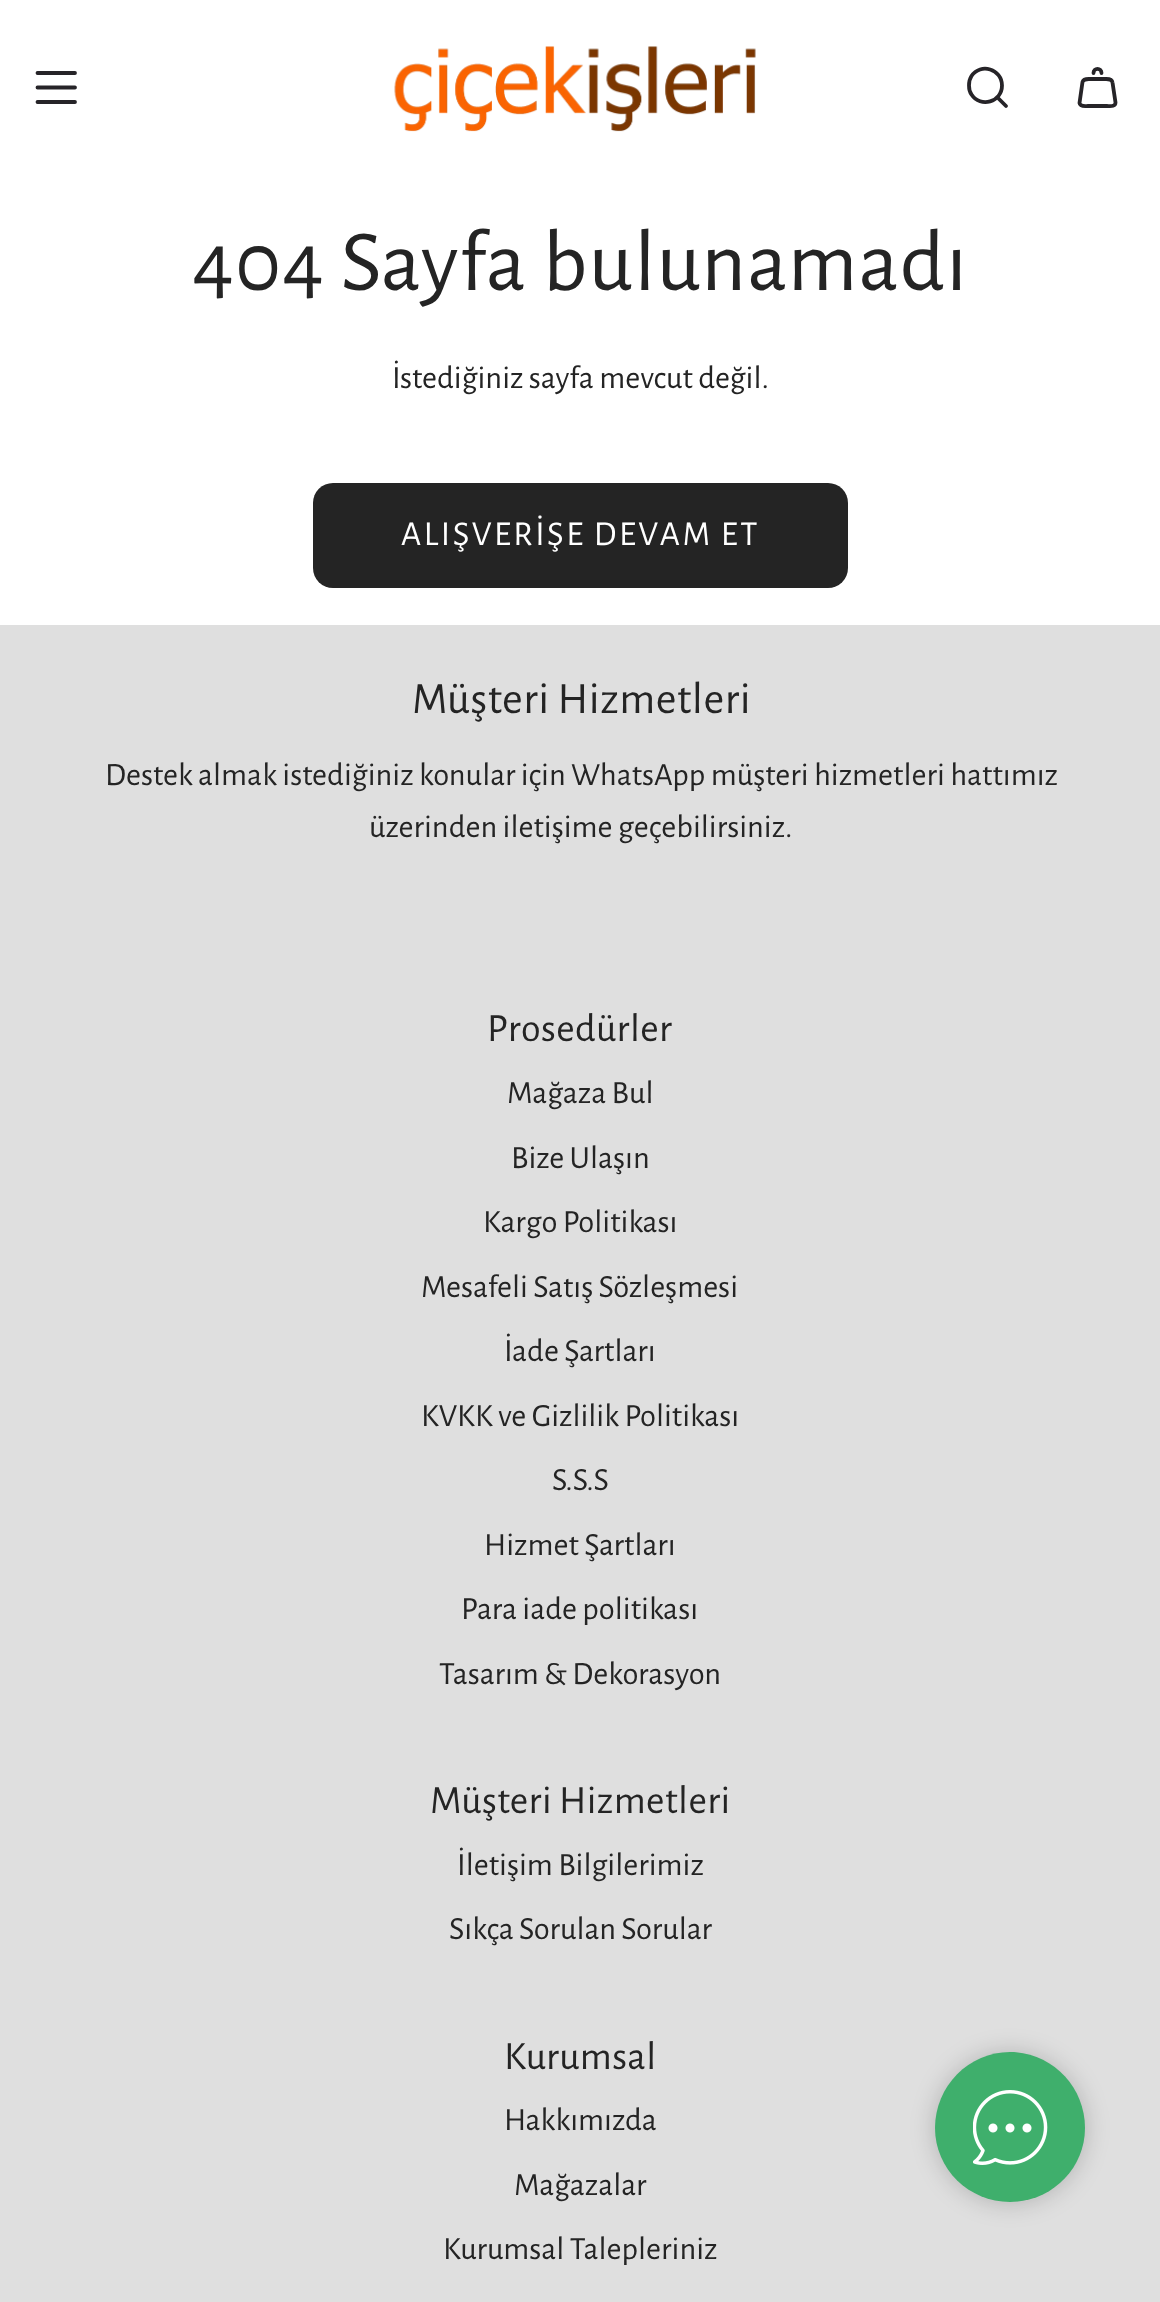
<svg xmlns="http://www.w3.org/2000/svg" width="1160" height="2302">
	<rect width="100%" height="100%" fill="#FFFFFF" />
	<path d="M37.5 73H75M37.5 87.5H75M37.5 102H75" fill="none" stroke="#262428" stroke-width="3.8" stroke-linecap="round" stroke-linejoin="round" />
	<image x="394" y="46" width="362" height="86" href="assets/img1.png" />
	<path d="M998 98L1006 106M969 85.5C969 88.5 969.5 92 971.5 94.5C980.5 108.5 1002 102 1002 85.5C1002 69 980.5 62.5 971.5 76C969.5 79 969 82 969 85.5Z" fill="none" stroke="#262428" stroke-width="3.8" stroke-linecap="round" stroke-linejoin="round" />
	<path d="M1101.5 73C1101.5 67.5 1093.5 67.5 1093.5 73M1112.5 82.5L1115.5 102.5C1115.5 107 1110 106 1107 106H1088C1085 106 1080 107 1079.5 103L1082.5 82C1083.5 78.5 1087.5 79 1090 79H1105C1108 79 1112 78.5 1112.5 82.5Z" fill="none" stroke="#262428" stroke-width="3.8" stroke-linecap="round" stroke-linejoin="round" />
	<text x="192" y="290" font-family="Alegreya Sans" font-size="87.5" letter-spacing="0.9" fill="#242424">404 Sayfa bulunamadı</text>
	<text x="392" y="388" font-family="Alegreya Sans" font-size="32.5" fill="#242424">İstediğiniz sayfa mevcut değil.</text>
	<rect x="313" y="483" width="535" height="105" rx="20" fill="#242424" />
	<text x="401" y="545" font-family="Alegreya Sans" font-size="35" letter-spacing="2.5" fill="#FFFFFF">ALIŞVERİŞE DEVAM ET</text>
	<rect x="0" y="625" width="1160" height="1677" fill="#DFDFDF" />
	<text x="412" y="713" font-family="Alegreya Sans" font-size="45" letter-spacing="0.5" fill="#242424">Müşteri Hizmetleri</text>
	<g font-family="Alegreya Sans" font-size="32.5" fill="#242424">
		<text x="105" y="785">Destek almak istediğiniz konular için WhatsApp müşteri hizmetleri hattımız</text>
		<text x="369" y="837">üzerinden iletişime geçebilirsiniz.</text>
	</g>
	<text x="487" y="1041" font-family="Alegreya Sans" font-size="40" letter-spacing="0.4" fill="#242424">Prosedürler</text>
	<g font-family="Alegreya Sans" font-size="32.5" fill="#242424">
		<text x="507" y="1103">Mağaza Bul</text>
		<text x="511" y="1168">Bize Ulaşın</text>
		<text x="483" y="1232">Kargo Politikası</text>
		<text x="421" y="1297">Mesafeli Satış Sözleşmesi</text>
		<text x="504" y="1361">İade Şartları</text>
		<text x="421" y="1426">KVKK ve Gizlilik Politikası</text>
		<text x="552" y="1490">S.S.S</text>
		<text x="484" y="1555">Hizmet Şartları</text>
		<text x="461" y="1619">Para iade politikası</text>
		<text x="439" y="1684">Tasarım &amp; Dekorasyon</text>
	</g>
	<text x="430" y="1813" font-family="Alegreya Sans" font-size="40" letter-spacing="0.4" fill="#242424">Müşteri Hizmetleri</text>
	<g font-family="Alegreya Sans" font-size="32.5" fill="#242424">
		<text x="457" y="1875">İletişim Bilgilerimiz</text>
		<text x="449" y="1939">Sıkça Sorulan Sorular</text>
	</g>
	<text x="504" y="2069" font-family="Alegreya Sans" font-size="40" letter-spacing="0.4" fill="#242424">Kurumsal</text>
	<g font-family="Alegreya Sans" font-size="32.5" fill="#242424">
		<text x="504" y="2130">Hakkımızda</text>
		<text x="514" y="2195">Mağazalar</text>
		<text x="443" y="2259">Kurumsal Talepleriniz</text>
	</g>
	<rect x="935" y="2053" width="150" height="150" rx="75" fill="#000000" fill-opacity="0.2" filter="blur(12.5px)" />
	<path d="M1010 2202C969 2202 935 2169 935 2128C935 2086 969 2052 1010 2052C1051 2052 1085 2086 1085 2128C1085 2169 1051 2202 1010 2202Z" fill="#3FAF6C" />
	<image x="973" y="2090" width="75" height="75" href="assets/img2.png" />
</svg>
